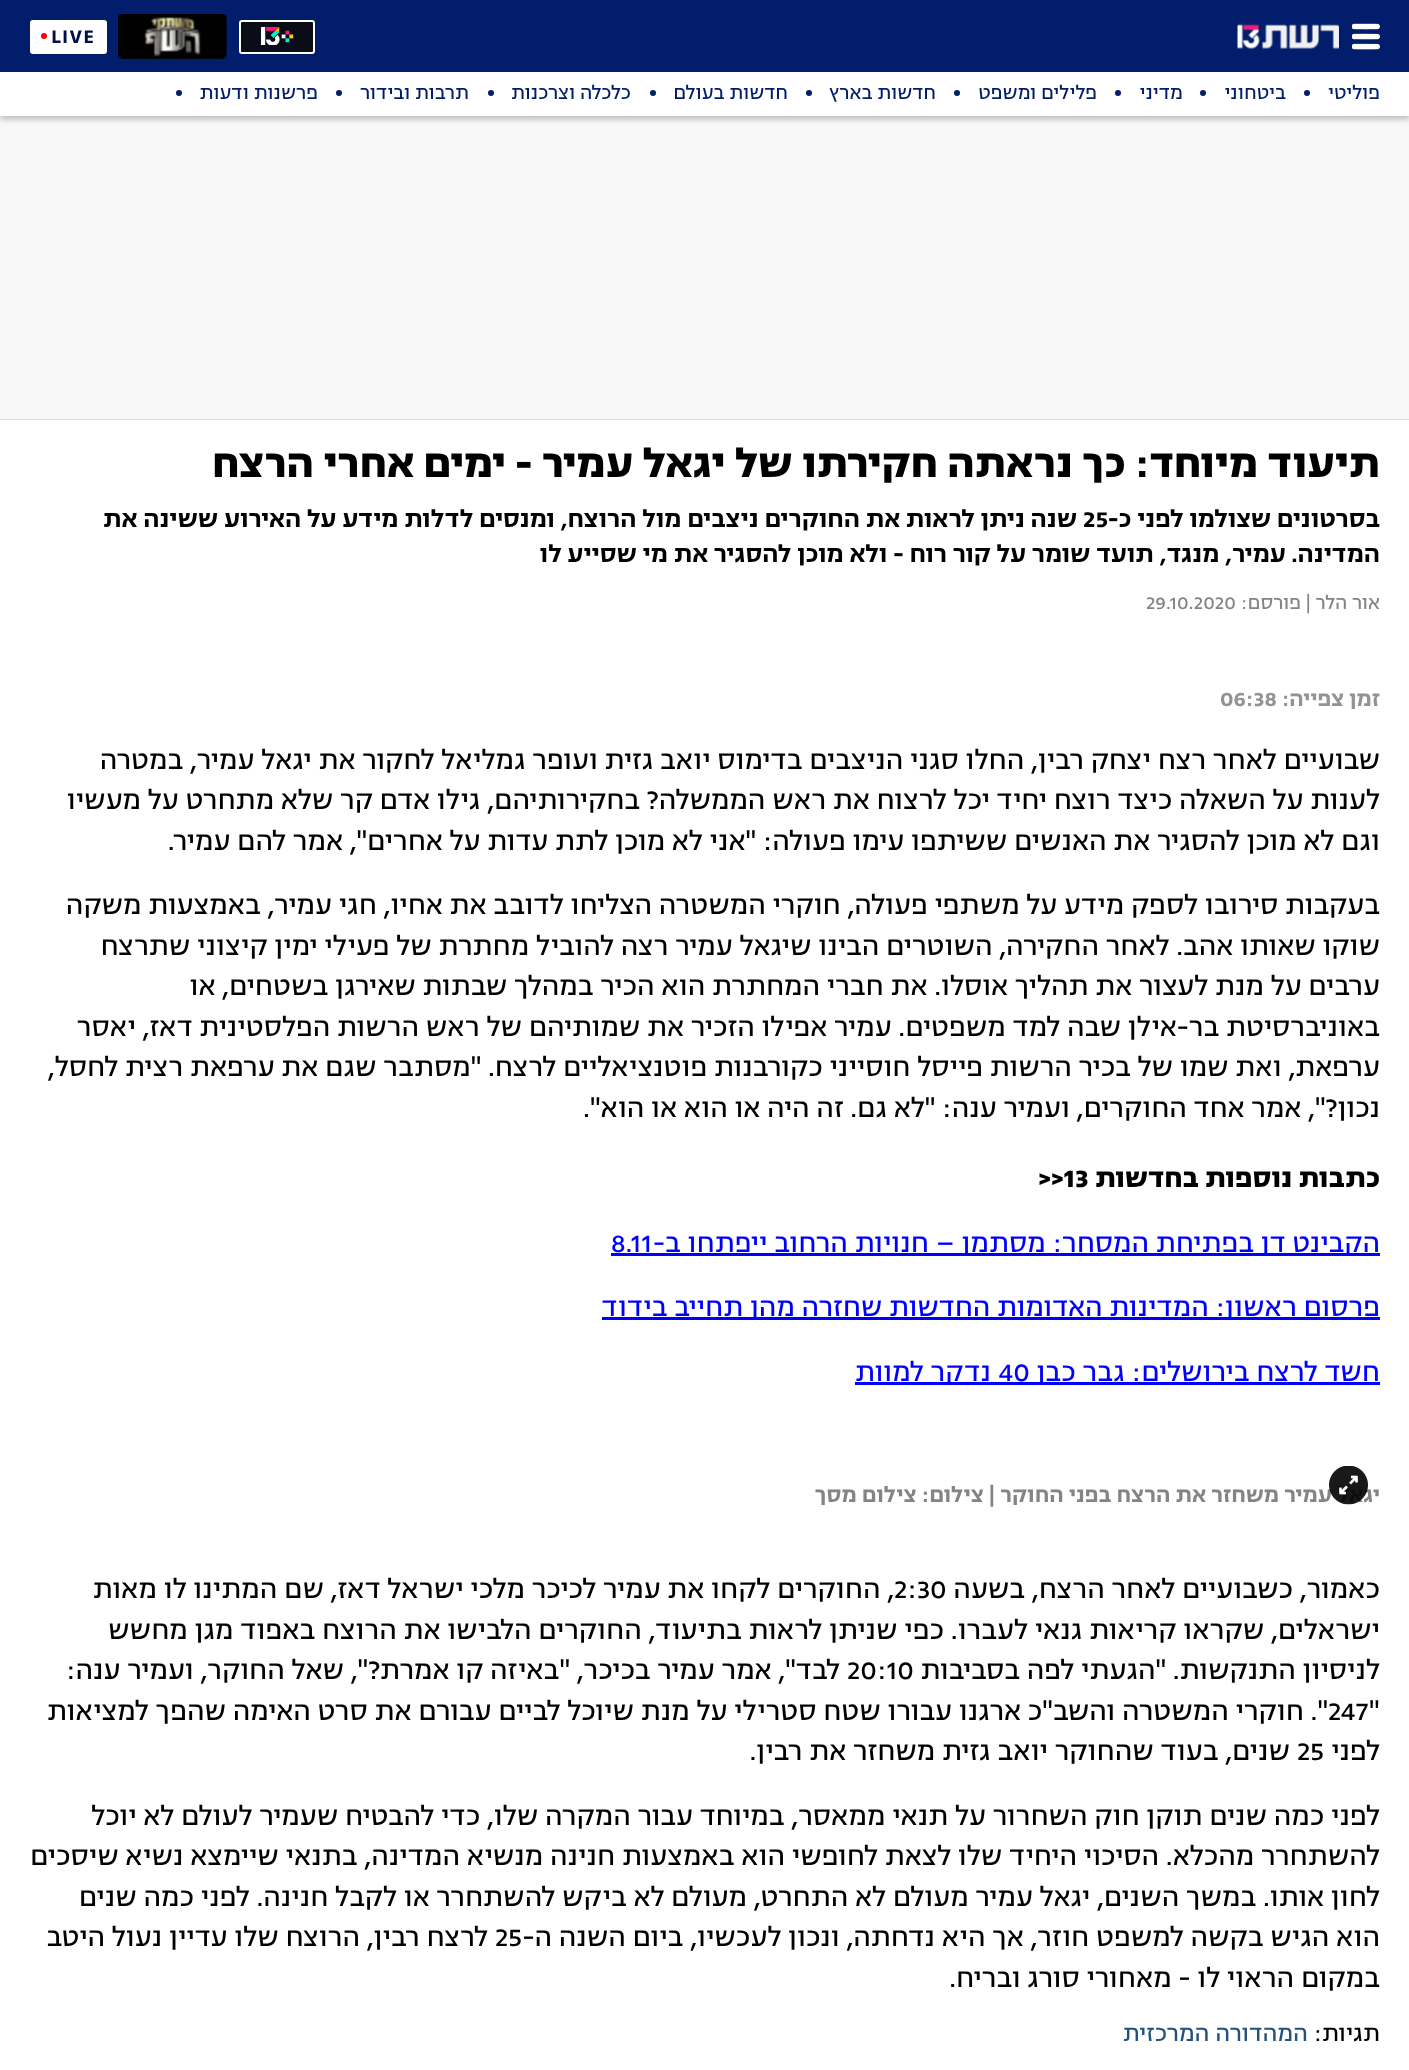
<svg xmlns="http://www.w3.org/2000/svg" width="1409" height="2070">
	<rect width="100%" height="100%" fill="#FFFFFF" />
	<rect x="0" y="116" width="1409" height="303" fill="#F8F8F8" />
	<rect x="0" y="3" width="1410" height="116" fill="#000000" fill-opacity="0.25" filter="blur(3px)" />
	<rect x="0" y="0" width="1409" height="72" fill="#011D6B" />
	<image x="1352" y="23" width="28" height="27" href="assets/img1.png" />
	<image x="1237" y="24" width="102" height="26" href="assets/img2.png" />
	<rect x="240" y="21" width="74" height="32" rx="2" fill="#0A0C18" stroke="#FFFFFF" stroke-width="2" />
	<image x="260" y="27" width="34" height="18" href="assets/img3.png" />
	<image x="118" y="14" width="109" height="45" href="assets/img4.png" />
	<rect x="30" y="20" width="77" height="34" rx="3" fill="#FFFFFF" />
	<text x="51" y="43" font-family="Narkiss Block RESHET" font-size="22" font-weight="600" letter-spacing="1" fill="#00104A">LIVE</text>
	<circle cx="44" cy="36" r="3" fill="#FF0000" />
	<rect x="0" y="72" width="1409" height="44" fill="#FFFFFF" />
	<text x="1380" y="99" font-family="Narkiss Block RESHET" font-size="21" direction="rtl" fill="#011D6B">פוליטי</text>
	<circle cx="1307" cy="93" r="3" fill="#011D6B" />
	<text x="1286" y="99" font-family="Narkiss Block RESHET" font-size="21" direction="rtl" fill="#011D6B">ביטחוני</text>
	<circle cx="1203" cy="93" r="3" fill="#011D6B" />
	<text x="1183" y="99" font-family="Narkiss Block RESHET" font-size="21" direction="rtl" fill="#011D6B">מדיני</text>
	<circle cx="1118" cy="93" r="3" fill="#011D6B" />
	<text x="1097" y="99" font-family="Narkiss Block RESHET" font-size="21" direction="rtl" fill="#011D6B">פלילים ומשפט</text>
	<circle cx="957" cy="93" r="3" fill="#011D6B" />
	<text x="936" y="99" font-family="Narkiss Block RESHET" font-size="21" direction="rtl" fill="#011D6B">חדשות בארץ</text>
	<circle cx="809" cy="93" r="3" fill="#011D6B" />
	<text x="788" y="99" font-family="Narkiss Block RESHET" font-size="21" direction="rtl" fill="#011D6B">חדשות בעולם</text>
	<circle cx="653" cy="93" r="3" fill="#011D6B" />
	<text x="631" y="99" font-family="Narkiss Block RESHET" font-size="21" direction="rtl" fill="#011D6B">כלכלה וצרכנות</text>
	<circle cx="491" cy="93" r="3" fill="#011D6B" />
	<text x="469" y="99" font-family="Narkiss Block RESHET" font-size="21" direction="rtl" fill="#011D6B">תרבות ובידור</text>
	<circle cx="339" cy="93" r="3" fill="#011D6B" />
	<text x="318" y="99" font-family="Narkiss Block RESHET" font-size="21" direction="rtl" fill="#011D6B">פרשנות ודעות</text>
	<circle cx="179" cy="93" r="3" fill="#011D6B" />
	<rect x="0" y="419" width="1409" height="1" fill="#DFDFDF" />
	<text x="1380" y="477" font-family="Narkiss Block RESHET" font-size="45" font-weight="700" direction="rtl" fill="#000000">תיעוד מיוחד: כך נראתה חקירתו של יגאל עמיר - ימים אחרי הרצח</text>
	<text x="1380" y="527" font-family="Narkiss Block RESHET" font-size="27" font-weight="600" direction="rtl" fill="#000000">בסרטונים שצולמו לפני כ-</text>
	<text x="1083" y="527" font-family="Narkiss Block RESHET" font-size="27" font-weight="600" fill="#000000">25</text>
	<g font-family="Narkiss Block RESHET" font-size="27" font-weight="600" direction="rtl" fill="#000000">
		<text x="1077" y="527">שנה ניתן לראות את החוקרים ניצבים מול הרוצח, ומנסים לדלות מידע על האירוע ששינה את</text>
		<text x="1380" y="562">המדינה. עמיר, מנגד, תועד שומר על קור רוח - ולא מוכן להסגיר את מי שסייע לו</text>
	</g>
	<g font-family="Narkiss Block RESHET" font-size="21" direction="rtl" fill="#848484">
		<text x="1380" y="609">אור הלר |</text>
		<text x="1301" y="609">פורסם:</text>
	</g>
	<text x="1146" y="609" font-family="Narkiss Block RESHET" font-size="21" fill="#848484">29.10.2020</text>
	<text x="1380" y="706" font-family="Narkiss Block RESHET" font-size="24" font-weight="600" direction="rtl" fill="#939393">זמן צפייה:</text>
	<text x="1220" y="706" font-family="Narkiss Block RESHET" font-size="24" font-weight="600" fill="#939393">06:38</text>
	<g font-family="Narkiss Block RESHET" font-size="30" direction="rtl" fill="#000000">
		<text x="1380" y="769">שבועיים לאחר רצח יצחק רבין, החלו סגני הניצבים בדימוס יואב גזית ועופר גמליאל לחקור את יגאל עמיר, במטרה</text>
		<text x="1380" y="809">לענות על השאלה כיצד רוצח יחיד יכל לרצוח את ראש הממשלה? בחקירותיהם, גילו אדם קר שלא מתחרט על מעשיו</text>
		<text x="1380" y="850">וגם לא מוכן להסגיר את האנשים ששיתפו עימו פעולה: "אני לא מוכן לתת עדות על אחרים", אמר להם עמיר.</text>
		<text x="1380" y="914">בעקבות סירובו לספק מידע על משתפי פעולה, חוקרי המשטרה הצליחו לדובב את אחיו, חגי עמיר, באמצעות משקה</text>
		<text x="1380" y="955">שוקו שאותו אהב. לאחר החקירה, השוטרים הבינו שיגאל עמיר רצה להוביל מחתרת של פעילי ימין קיצוני שתרצח</text>
		<text x="1380" y="995">ערבים על מנת לעצור את תהליך אוסלו. את חברי המחתרת הוא הכיר במהלך שבתות שאירגן בשטחים, או</text>
		<text x="1380" y="1036">באוניברסיטת בר-אילן שבה למד משפטים. עמיר אפילו הזכיר את שמותיהם של ראש הרשות הפלסטינית דאז, יאסר</text>
		<text x="1380" y="1076">ערפאת, ואת שמו של בכיר הרשות פייסל חוסייני כקורבנות פוטנציאליים לרצח. "מסתבר שגם את ערפאת רצית לחסל,</text>
		<text x="1380" y="1117">נכון?", אמר אחד החוקרים, ועמיר ענה: "לא גם. זה היה או הוא או הוא".</text>
	</g>
	<text x="1380" y="1187" font-family="Narkiss Block RESHET" font-size="30" font-weight="700" direction="rtl" fill="#000000">כתבות נוספות בחדשות</text>
	<text x="1038" y="1187" font-family="Narkiss Block RESHET" font-size="30" font-weight="700" fill="#000000">&gt;&gt;13</text>
	<rect x="611" y="1253" width="769" height="3" fill="#0000FF" />
	<text x="1380" y="1252" font-family="Narkiss Block RESHET" font-size="30" direction="rtl" fill="#0000FF">הקבינט דן בפתיחת המסחר: מסתמן – חנויות הרחוב ייפתחו ב-</text>
	<text x="611" y="1252" font-family="Narkiss Block RESHET" font-size="30" fill="#0000FF">8.11</text>
	<rect x="602" y="1317" width="778" height="3" fill="#0000FF" />
	<text x="1380" y="1316" font-family="Narkiss Block RESHET" font-size="30" direction="rtl" fill="#0000FF">פרסום ראשון: המדינות האדומות החדשות שחזרה מהן תחייב בידוד</text>
	<rect x="855" y="1382" width="525" height="3" fill="#0000FF" />
	<text x="1380" y="1381" font-family="Narkiss Block RESHET" font-size="30" direction="rtl" fill="#0000FF">חשד לרצח בירושלים: גבר כבן</text>
	<text x="998" y="1381" font-family="Narkiss Block RESHET" font-size="30" fill="#0000FF">40</text>
	<text x="991" y="1381" font-family="Narkiss Block RESHET" font-size="30" direction="rtl" fill="#0000FF">נדקר למוות</text>
	<text x="1380" y="1502" font-family="Narkiss Block RESHET" font-size="24" font-weight="600" direction="rtl" fill="#848484">יגאל עמיר משחזר את הרצח בפני החוקר | צילום: צילום מסך</text>
	<image x="1329" y="1466" width="39" height="39" href="assets/img5.png" />
	<text x="1380" y="1598" font-family="Narkiss Block RESHET" font-size="30" direction="rtl" fill="#000000">כאמור, כשבועיים לאחר הרצח, בשעה</text>
	<text x="894" y="1598" font-family="Narkiss Block RESHET" font-size="30" fill="#000000">2:30</text>
	<g font-family="Narkiss Block RESHET" font-size="30" direction="rtl" fill="#000000">
		<text x="894" y="1598">, החוקרים לקחו את עמיר לכיכר מלכי ישראל דאז, שם המתינו לו מאות</text>
		<text x="1380" y="1639">ישראלים, שקראו קריאות גנאי לעברו. כפי שניתן לראות בתיעוד, החוקרים הלבישו את הרוצח באפוד מגן מחשש</text>
		<text x="1380" y="1679">לניסיון התנקשות. "הגעתי לפה בסביבות</text>
	</g>
	<text x="847" y="1679" font-family="Narkiss Block RESHET" font-size="30" fill="#000000">20:10</text>
	<text x="840" y="1679" font-family="Narkiss Block RESHET" font-size="30" direction="rtl" fill="#000000">לבד", אמר עמיר בכיכר, "באיזה קו אמרת?", שאל החוקר, ועמיר ענה:</text>
	<g font-family="Narkiss Block RESHET" font-size="30" fill="#000000">
		<text x="1369" y="1720">"</text>
		<text x="1328" y="1720">247</text>
	</g>
	<g font-family="Narkiss Block RESHET" font-size="30" direction="rtl" fill="#000000">
		<text x="1328" y="1720">". חוקרי המשטרה והשב"כ ארגנו עבורו שטח סטרילי על מנת שיוכל לביים עבורם את סרט האימה שהפך למציאות</text>
		<text x="1380" y="1760">לפני</text>
	</g>
	<text x="1297" y="1760" font-family="Narkiss Block RESHET" font-size="30" fill="#000000">25</text>
	<g font-family="Narkiss Block RESHET" font-size="30" direction="rtl" fill="#000000">
		<text x="1290" y="1760">שנים, בעוד שהחוקר יואב גזית משחזר את רבין.</text>
		<text x="1380" y="1825">לפני כמה שנים תוקן חוק השחרור על תנאי ממאסר, במיוחד עבור המקרה שלו, כדי להבטיח שעמיר לעולם לא יוכל</text>
		<text x="1380" y="1865">להשתחרר מהכלא. הסיכוי היחיד שלו לצאת לחופשי הוא באמצעות חנינה מנשיא המדינה, בתנאי שיימצא נשיא שיסכים</text>
		<text x="1380" y="1906">לחון אותו. במשך השנים, יגאל עמיר מעולם לא התחרט, מעולם לא ביקש להשתחרר או לקבל חנינה. לפני כמה שנים</text>
		<text x="1380" y="1946">הוא הגיש בקשה למשפט חוזר, אך היא נדחתה, ונכון לעכשיו, ביום השנה ה-</text>
	</g>
	<text x="495" y="1946" font-family="Narkiss Block RESHET" font-size="30" fill="#000000">25</text>
	<g font-family="Narkiss Block RESHET" font-size="30" direction="rtl" fill="#000000">
		<text x="488" y="1946">לרצח רבין, הרוצח שלו עדיין נעול היטב</text>
		<text x="1380" y="1987">במקום הראוי לו - מאחורי סורג ובריח.</text>
	</g>
	<text x="1380" y="2041" font-family="Narkiss Block RESHET" font-size="25.5" direction="rtl" fill="#000000">תגיות:</text>
	<text x="1308" y="2041" font-family="Narkiss Block RESHET" font-size="25.5" direction="rtl" fill="#23527C">המהדורה המרכזית</text>
</svg>
